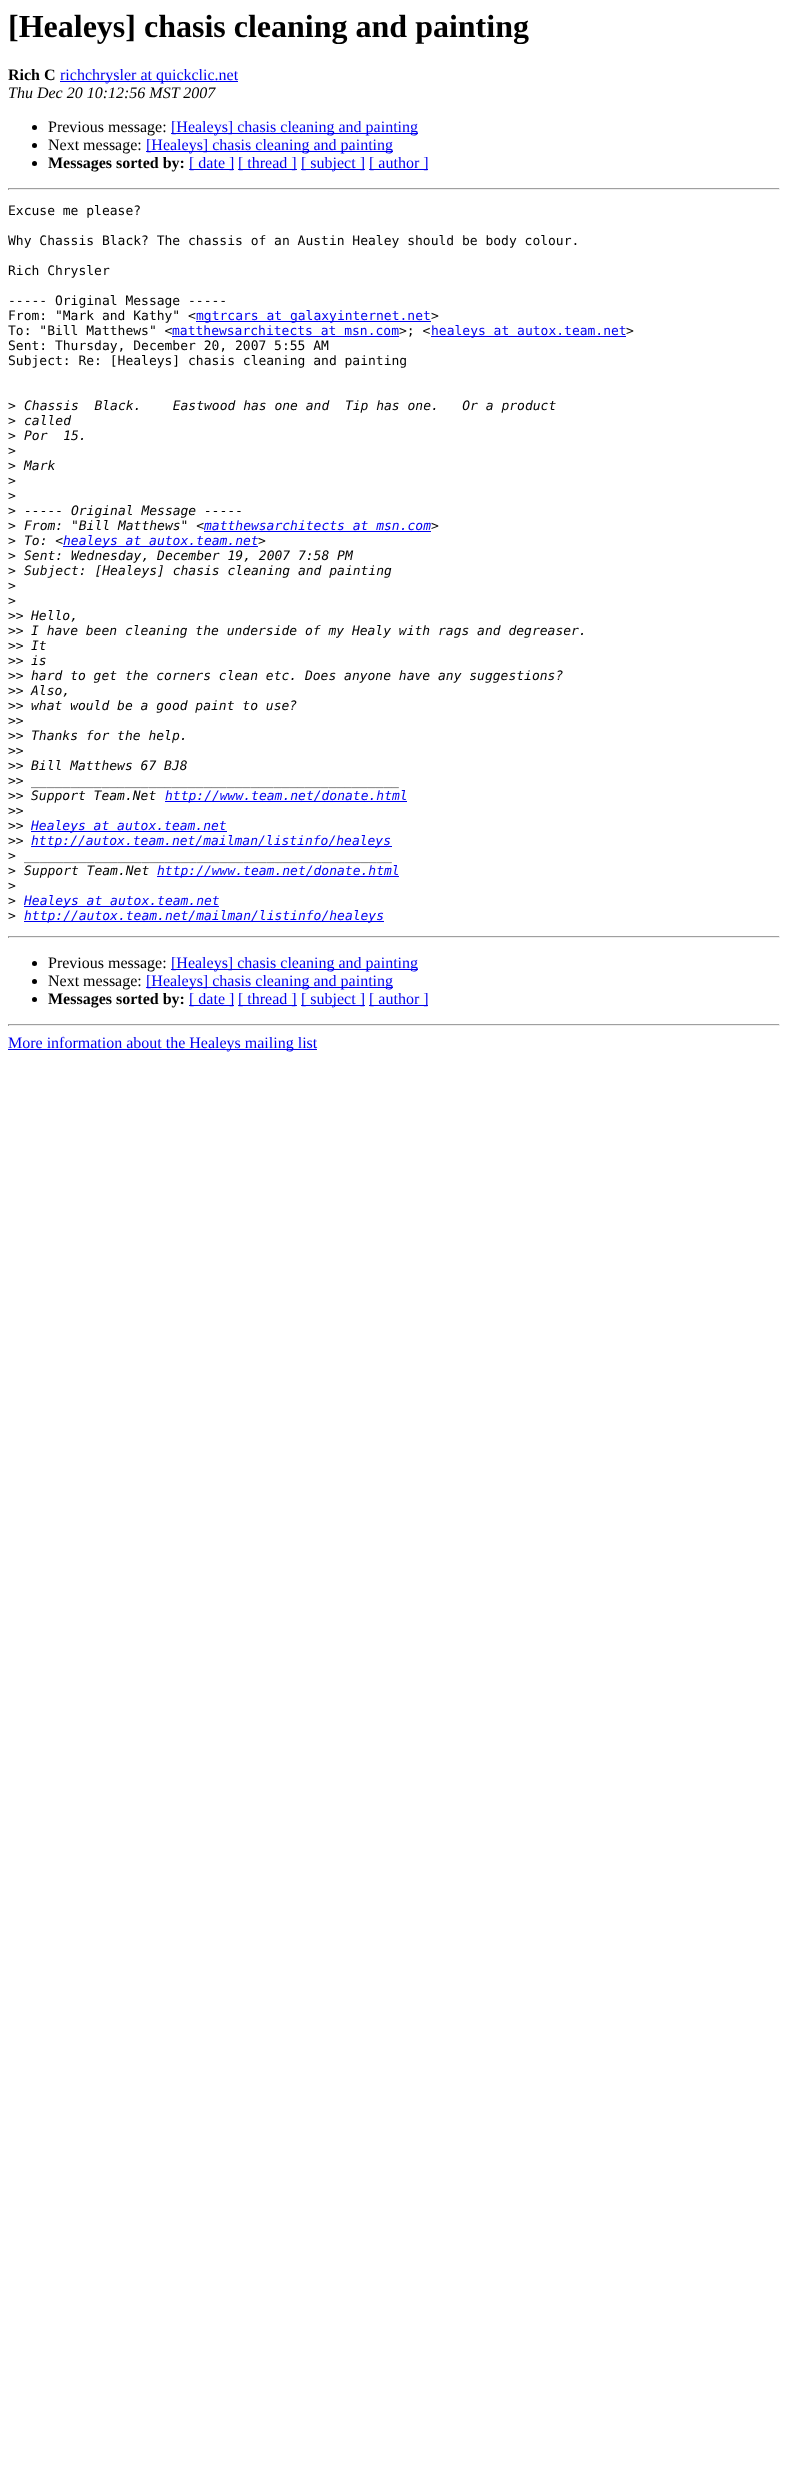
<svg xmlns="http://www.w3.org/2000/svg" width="788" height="2471">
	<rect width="100%" height="100%" fill="#FFFFFF" />
	<text x="8" y="37" font-family="Liberation Serif" font-size="32" font-weight="700" fill="#000000">[Healeys] chasis cleaning and painting</text>
	<text x="8" y="80" font-family="Liberation Serif" font-size="16" font-weight="700" fill="#000000">Rich C</text>
	<rect x="60" y="81" width="178" height="1" fill="#0000EE" />
	<text x="60" y="80" font-family="Liberation Serif" font-size="16" fill="#0000EE">richchrysler at quickclic.net</text>
	<text x="8" y="98" font-family="Liberation Serif" font-size="16" font-style="italic" fill="#000000">Thu Dec 20 10:12:56 MST 2007</text>
	<circle cx="34.5" cy="127.5" r="2.5" fill="#000000" />
	<text x="48" y="132" font-family="Liberation Serif" font-size="16" fill="#000000">Previous message:</text>
	<rect x="171" y="133" width="247" height="1" fill="#0000EE" />
	<text x="171" y="132" font-family="Liberation Serif" font-size="16" fill="#0000EE">[Healeys] chasis cleaning and painting</text>
	<circle cx="34.5" cy="145.5" r="2.5" fill="#000000" />
	<text x="48" y="150" font-family="Liberation Serif" font-size="16" fill="#000000">Next message:</text>
	<rect x="146" y="151" width="247" height="1" fill="#0000EE" />
	<text x="146" y="150" font-family="Liberation Serif" font-size="16" fill="#0000EE">[Healeys] chasis cleaning and painting</text>
	<circle cx="34.5" cy="163.5" r="2.5" fill="#000000" />
	<text x="48" y="168" font-family="Liberation Serif" font-size="16" font-weight="700" fill="#000000">Messages sorted by:</text>
	<rect x="189" y="169" width="45" height="1" fill="#0000EE" />
	<text x="189" y="168" font-family="Liberation Serif" font-size="16" fill="#0000EE">[ date ]</text>
	<rect x="238" y="169" width="59" height="1" fill="#0000EE" />
	<text x="238" y="168" font-family="Liberation Serif" font-size="16" fill="#0000EE">[ thread ]</text>
	<rect x="301" y="169" width="64" height="1" fill="#0000EE" />
	<text x="301" y="168" font-family="Liberation Serif" font-size="16" fill="#0000EE">[ subject ]</text>
	<rect x="369" y="169" width="59" height="1" fill="#0000EE" />
	<text x="369" y="168" font-family="Liberation Serif" font-size="16" fill="#0000EE">[ author ]</text>
	<rect x="8" y="188" width="772" height="1" fill="#9F9F9F" />
	<rect x="779" y="188" width="1" height="2" fill="#EEEEEE" />
	<rect x="8" y="189" width="772" height="1" fill="#EEEEEE" />
	<rect x="8" y="188" width="1" height="2" fill="#9F9F9F" />
	<g font-family="DejaVu Sans Mono" font-size="13" fill="#000000">
		<text x="8" y="215">Excuse me please?</text>
		<text x="8" y="245">Why Chassis Black? The chassis of an Austin Healey should be body colour.</text>
		<text x="8" y="275">Rich Chrysler</text>
		<text x="8" y="305">----- Original Message -----</text>
		<text x="8" y="320">From: "Mark and Kathy" &lt;</text>
	</g>
	<rect x="196" y="321" width="235" height="1" fill="#0000EE" />
	<text x="196" y="320" font-family="DejaVu Sans Mono" font-size="13" fill="#0000EE">mgtrcars at galaxyinternet.net</text>
	<g font-family="DejaVu Sans Mono" font-size="13" fill="#000000">
		<text x="431" y="320">&gt;</text>
		<text x="8" y="335">To: "Bill Matthews" &lt;</text>
	</g>
	<text x="172" y="335" font-family="DejaVu Sans Mono" font-size="13" fill="#0000EE">matthewsarchitects at msn.com</text>
	<rect x="172" y="336" width="227" height="1" fill="#0000EE" />
	<text x="399" y="335" font-family="DejaVu Sans Mono" font-size="13" fill="#000000">&gt;; &lt;</text>
	<rect x="431" y="336" width="195" height="1" fill="#0000EE" />
	<text x="431" y="335" font-family="DejaVu Sans Mono" font-size="13" fill="#0000EE">healeys at autox.team.net</text>
	<g font-family="DejaVu Sans Mono" font-size="13" fill="#000000">
		<text x="626" y="335">&gt;</text>
		<text x="8" y="350">Sent: Thursday, December 20, 2007 5:55 AM</text>
		<text x="8" y="365">Subject: Re: [Healeys] chasis cleaning and painting</text>
		<text x="8" y="410">&gt;</text>
	</g>
	<text x="24" y="410" font-family="DejaVu Sans Mono" font-size="13" font-style="italic" fill="#000000" xml:space="preserve">Chassis  Black.    Eastwood has one and  Tip has one.   Or a product</text>
	<text x="8" y="425" font-family="DejaVu Sans Mono" font-size="13" fill="#000000">&gt;</text>
	<text x="24" y="425" font-family="DejaVu Sans Mono" font-size="13" font-style="italic" fill="#000000">called</text>
	<text x="8" y="440" font-family="DejaVu Sans Mono" font-size="13" fill="#000000">&gt;</text>
	<text x="24" y="440" font-family="DejaVu Sans Mono" font-size="13" font-style="italic" fill="#000000" xml:space="preserve">Por  15.</text>
	<g font-family="DejaVu Sans Mono" font-size="13" fill="#000000">
		<text x="8" y="455">&gt;</text>
		<text x="8" y="470">&gt;</text>
	</g>
	<text x="24" y="470" font-family="DejaVu Sans Mono" font-size="13" font-style="italic" fill="#000000">Mark</text>
	<g font-family="DejaVu Sans Mono" font-size="13" fill="#000000">
		<text x="8" y="485">&gt;</text>
		<text x="8" y="500">&gt;</text>
		<text x="8" y="515">&gt;</text>
	</g>
	<text x="24" y="515" font-family="DejaVu Sans Mono" font-size="13" font-style="italic" fill="#000000">----- Original Message -----</text>
	<text x="8" y="530" font-family="DejaVu Sans Mono" font-size="13" fill="#000000">&gt;</text>
	<text x="24" y="530" font-family="DejaVu Sans Mono" font-size="13" font-style="italic" fill="#000000">From: "Bill Matthews" &lt;</text>
	<text x="204" y="530" font-family="DejaVu Sans Mono" font-size="13" font-style="italic" fill="#0000EE">matthewsarchitects at msn.com</text>
	<text x="431" y="530" font-family="DejaVu Sans Mono" font-size="13" font-style="italic" fill="#000000">&gt;</text>
	<rect x="204" y="531" width="227" height="1" fill="#0000EE" />
	<text x="8" y="545" font-family="DejaVu Sans Mono" font-size="13" fill="#000000">&gt;</text>
	<text x="24" y="545" font-family="DejaVu Sans Mono" font-size="13" font-style="italic" fill="#000000">To: &lt;</text>
	<rect x="63" y="546" width="195" height="1" fill="#0000EE" />
	<text x="63" y="545" font-family="DejaVu Sans Mono" font-size="13" font-style="italic" fill="#0000EE">healeys at autox.team.net</text>
	<text x="258" y="545" font-family="DejaVu Sans Mono" font-size="13" font-style="italic" fill="#000000">&gt;</text>
	<text x="8" y="560" font-family="DejaVu Sans Mono" font-size="13" fill="#000000">&gt;</text>
	<text x="24" y="560" font-family="DejaVu Sans Mono" font-size="13" font-style="italic" fill="#000000">Sent: Wednesday, December 19, 2007 7:58 PM</text>
	<text x="8" y="575" font-family="DejaVu Sans Mono" font-size="13" fill="#000000">&gt;</text>
	<text x="24" y="575" font-family="DejaVu Sans Mono" font-size="13" font-style="italic" fill="#000000">Subject: [Healeys] chasis cleaning and painting</text>
	<g font-family="DejaVu Sans Mono" font-size="13" fill="#000000">
		<text x="8" y="590">&gt;</text>
		<text x="8" y="605">&gt;</text>
		<text x="8" y="620">&gt;&gt;</text>
	</g>
	<text x="31" y="620" font-family="DejaVu Sans Mono" font-size="13" font-style="italic" fill="#000000">Hello,</text>
	<text x="8" y="635" font-family="DejaVu Sans Mono" font-size="13" fill="#000000">&gt;&gt;</text>
	<text x="31" y="635" font-family="DejaVu Sans Mono" font-size="13" font-style="italic" fill="#000000">I have been cleaning the underside of my Healy with rags and degreaser.</text>
	<text x="8" y="650" font-family="DejaVu Sans Mono" font-size="13" fill="#000000">&gt;&gt;</text>
	<text x="31" y="650" font-family="DejaVu Sans Mono" font-size="13" font-style="italic" fill="#000000">It</text>
	<text x="8" y="665" font-family="DejaVu Sans Mono" font-size="13" fill="#000000">&gt;&gt;</text>
	<text x="31" y="665" font-family="DejaVu Sans Mono" font-size="13" font-style="italic" fill="#000000">is</text>
	<text x="8" y="680" font-family="DejaVu Sans Mono" font-size="13" fill="#000000">&gt;&gt;</text>
	<text x="31" y="680" font-family="DejaVu Sans Mono" font-size="13" font-style="italic" fill="#000000">hard to get the corners clean etc. Does anyone have any suggestions?</text>
	<text x="8" y="695" font-family="DejaVu Sans Mono" font-size="13" fill="#000000">&gt;&gt;</text>
	<text x="31" y="695" font-family="DejaVu Sans Mono" font-size="13" font-style="italic" fill="#000000">Also,</text>
	<text x="8" y="710" font-family="DejaVu Sans Mono" font-size="13" fill="#000000">&gt;&gt;</text>
	<text x="31" y="710" font-family="DejaVu Sans Mono" font-size="13" font-style="italic" fill="#000000">what would be a good paint to use?</text>
	<g font-family="DejaVu Sans Mono" font-size="13" fill="#000000">
		<text x="8" y="725">&gt;&gt;</text>
		<text x="8" y="740">&gt;&gt;</text>
	</g>
	<text x="31" y="740" font-family="DejaVu Sans Mono" font-size="13" font-style="italic" fill="#000000">Thanks for the help.</text>
	<g font-family="DejaVu Sans Mono" font-size="13" fill="#000000">
		<text x="8" y="755">&gt;&gt;</text>
		<text x="8" y="770">&gt;&gt;</text>
	</g>
	<text x="31" y="770" font-family="DejaVu Sans Mono" font-size="13" font-style="italic" fill="#000000">Bill Matthews 67 BJ8</text>
	<text x="8" y="785" font-family="DejaVu Sans Mono" font-size="13" fill="#000000">&gt;&gt;</text>
	<text x="31" y="785" font-family="DejaVu Sans Mono" font-size="13" font-style="italic" fill="#000000">_______________________________________________</text>
	<text x="8" y="800" font-family="DejaVu Sans Mono" font-size="13" fill="#000000">&gt;&gt;</text>
	<text x="31" y="800" font-family="DejaVu Sans Mono" font-size="13" font-style="italic" fill="#000000">Support Team.Net</text>
	<rect x="165" y="801" width="242" height="1" fill="#0000EE" />
	<text x="165" y="800" font-family="DejaVu Sans Mono" font-size="13" font-style="italic" fill="#0000EE">http://www.team.net/donate.html</text>
	<g font-family="DejaVu Sans Mono" font-size="13" fill="#000000">
		<text x="8" y="815">&gt;&gt;</text>
		<text x="8" y="830">&gt;&gt;</text>
	</g>
	<rect x="31" y="831" width="196" height="1" fill="#0000EE" />
	<text x="31" y="830" font-family="DejaVu Sans Mono" font-size="13" font-style="italic" fill="#0000EE">Healeys at autox.team.net</text>
	<text x="8" y="845" font-family="DejaVu Sans Mono" font-size="13" fill="#000000">&gt;&gt;</text>
	<rect x="31" y="846" width="361" height="1" fill="#0000EE" />
	<text x="31" y="845" font-family="DejaVu Sans Mono" font-size="13" font-style="italic" fill="#0000EE">http://autox.team.net/mailman/listinfo/healeys</text>
	<text x="8" y="860" font-family="DejaVu Sans Mono" font-size="13" fill="#000000">&gt;</text>
	<text x="24" y="860" font-family="DejaVu Sans Mono" font-size="13" font-style="italic" fill="#000000">_______________________________________________</text>
	<text x="8" y="875" font-family="DejaVu Sans Mono" font-size="13" fill="#000000">&gt;</text>
	<text x="24" y="875" font-family="DejaVu Sans Mono" font-size="13" font-style="italic" fill="#000000">Support Team.Net</text>
	<rect x="157" y="876" width="242" height="1" fill="#0000EE" />
	<text x="157" y="875" font-family="DejaVu Sans Mono" font-size="13" font-style="italic" fill="#0000EE">http://www.team.net/donate.html</text>
	<g font-family="DejaVu Sans Mono" font-size="13" fill="#000000">
		<text x="8" y="890">&gt;</text>
		<text x="8" y="905">&gt;</text>
	</g>
	<rect x="24" y="906" width="195" height="1" fill="#0000EE" />
	<text x="24" y="905" font-family="DejaVu Sans Mono" font-size="13" font-style="italic" fill="#0000EE">Healeys at autox.team.net</text>
	<text x="8" y="920" font-family="DejaVu Sans Mono" font-size="13" fill="#000000">&gt;</text>
	<rect x="24" y="921" width="360" height="1" fill="#0000EE" />
	<text x="24" y="920" font-family="DejaVu Sans Mono" font-size="13" font-style="italic" fill="#0000EE">http://autox.team.net/mailman/listinfo/healeys</text>
	<rect x="8" y="936" width="772" height="1" fill="#9F9F9F" />
	<rect x="779" y="936" width="1" height="2" fill="#EEEEEE" />
	<rect x="8" y="937" width="772" height="1" fill="#EEEEEE" />
	<rect x="8" y="936" width="1" height="2" fill="#9F9F9F" />
	<circle cx="34.5" cy="963.5" r="2.5" fill="#000000" />
	<text x="48" y="968" font-family="Liberation Serif" font-size="16" fill="#000000">Previous message:</text>
	<rect x="171" y="969" width="247" height="1" fill="#0000EE" />
	<text x="171" y="968" font-family="Liberation Serif" font-size="16" fill="#0000EE">[Healeys] chasis cleaning and painting</text>
	<circle cx="34.5" cy="981.5" r="2.5" fill="#000000" />
	<text x="48" y="986" font-family="Liberation Serif" font-size="16" fill="#000000">Next message:</text>
	<rect x="146" y="987" width="247" height="1" fill="#0000EE" />
	<text x="146" y="986" font-family="Liberation Serif" font-size="16" fill="#0000EE">[Healeys] chasis cleaning and painting</text>
	<circle cx="34.5" cy="999.5" r="2.5" fill="#000000" />
	<text x="48" y="1004" font-family="Liberation Serif" font-size="16" font-weight="700" fill="#000000">Messages sorted by:</text>
	<rect x="189" y="1005" width="45" height="1" fill="#0000EE" />
	<text x="189" y="1004" font-family="Liberation Serif" font-size="16" fill="#0000EE">[ date ]</text>
	<rect x="238" y="1005" width="59" height="1" fill="#0000EE" />
	<text x="238" y="1004" font-family="Liberation Serif" font-size="16" fill="#0000EE">[ thread ]</text>
	<rect x="301" y="1005" width="64" height="1" fill="#0000EE" />
	<text x="301" y="1004" font-family="Liberation Serif" font-size="16" fill="#0000EE">[ subject ]</text>
	<rect x="369" y="1005" width="59" height="1" fill="#0000EE" />
	<text x="369" y="1004" font-family="Liberation Serif" font-size="16" fill="#0000EE">[ author ]</text>
	<rect x="8" y="1024" width="772" height="1" fill="#9F9F9F" />
	<rect x="779" y="1024" width="1" height="2" fill="#EEEEEE" />
	<rect x="8" y="1025" width="772" height="1" fill="#EEEEEE" />
	<rect x="8" y="1024" width="1" height="2" fill="#9F9F9F" />
	<rect x="8" y="1049" width="309" height="1" fill="#0000EE" />
	<text x="8" y="1048" font-family="Liberation Serif" font-size="16" fill="#0000EE">More information about the Healeys mailing list</text>
</svg>
